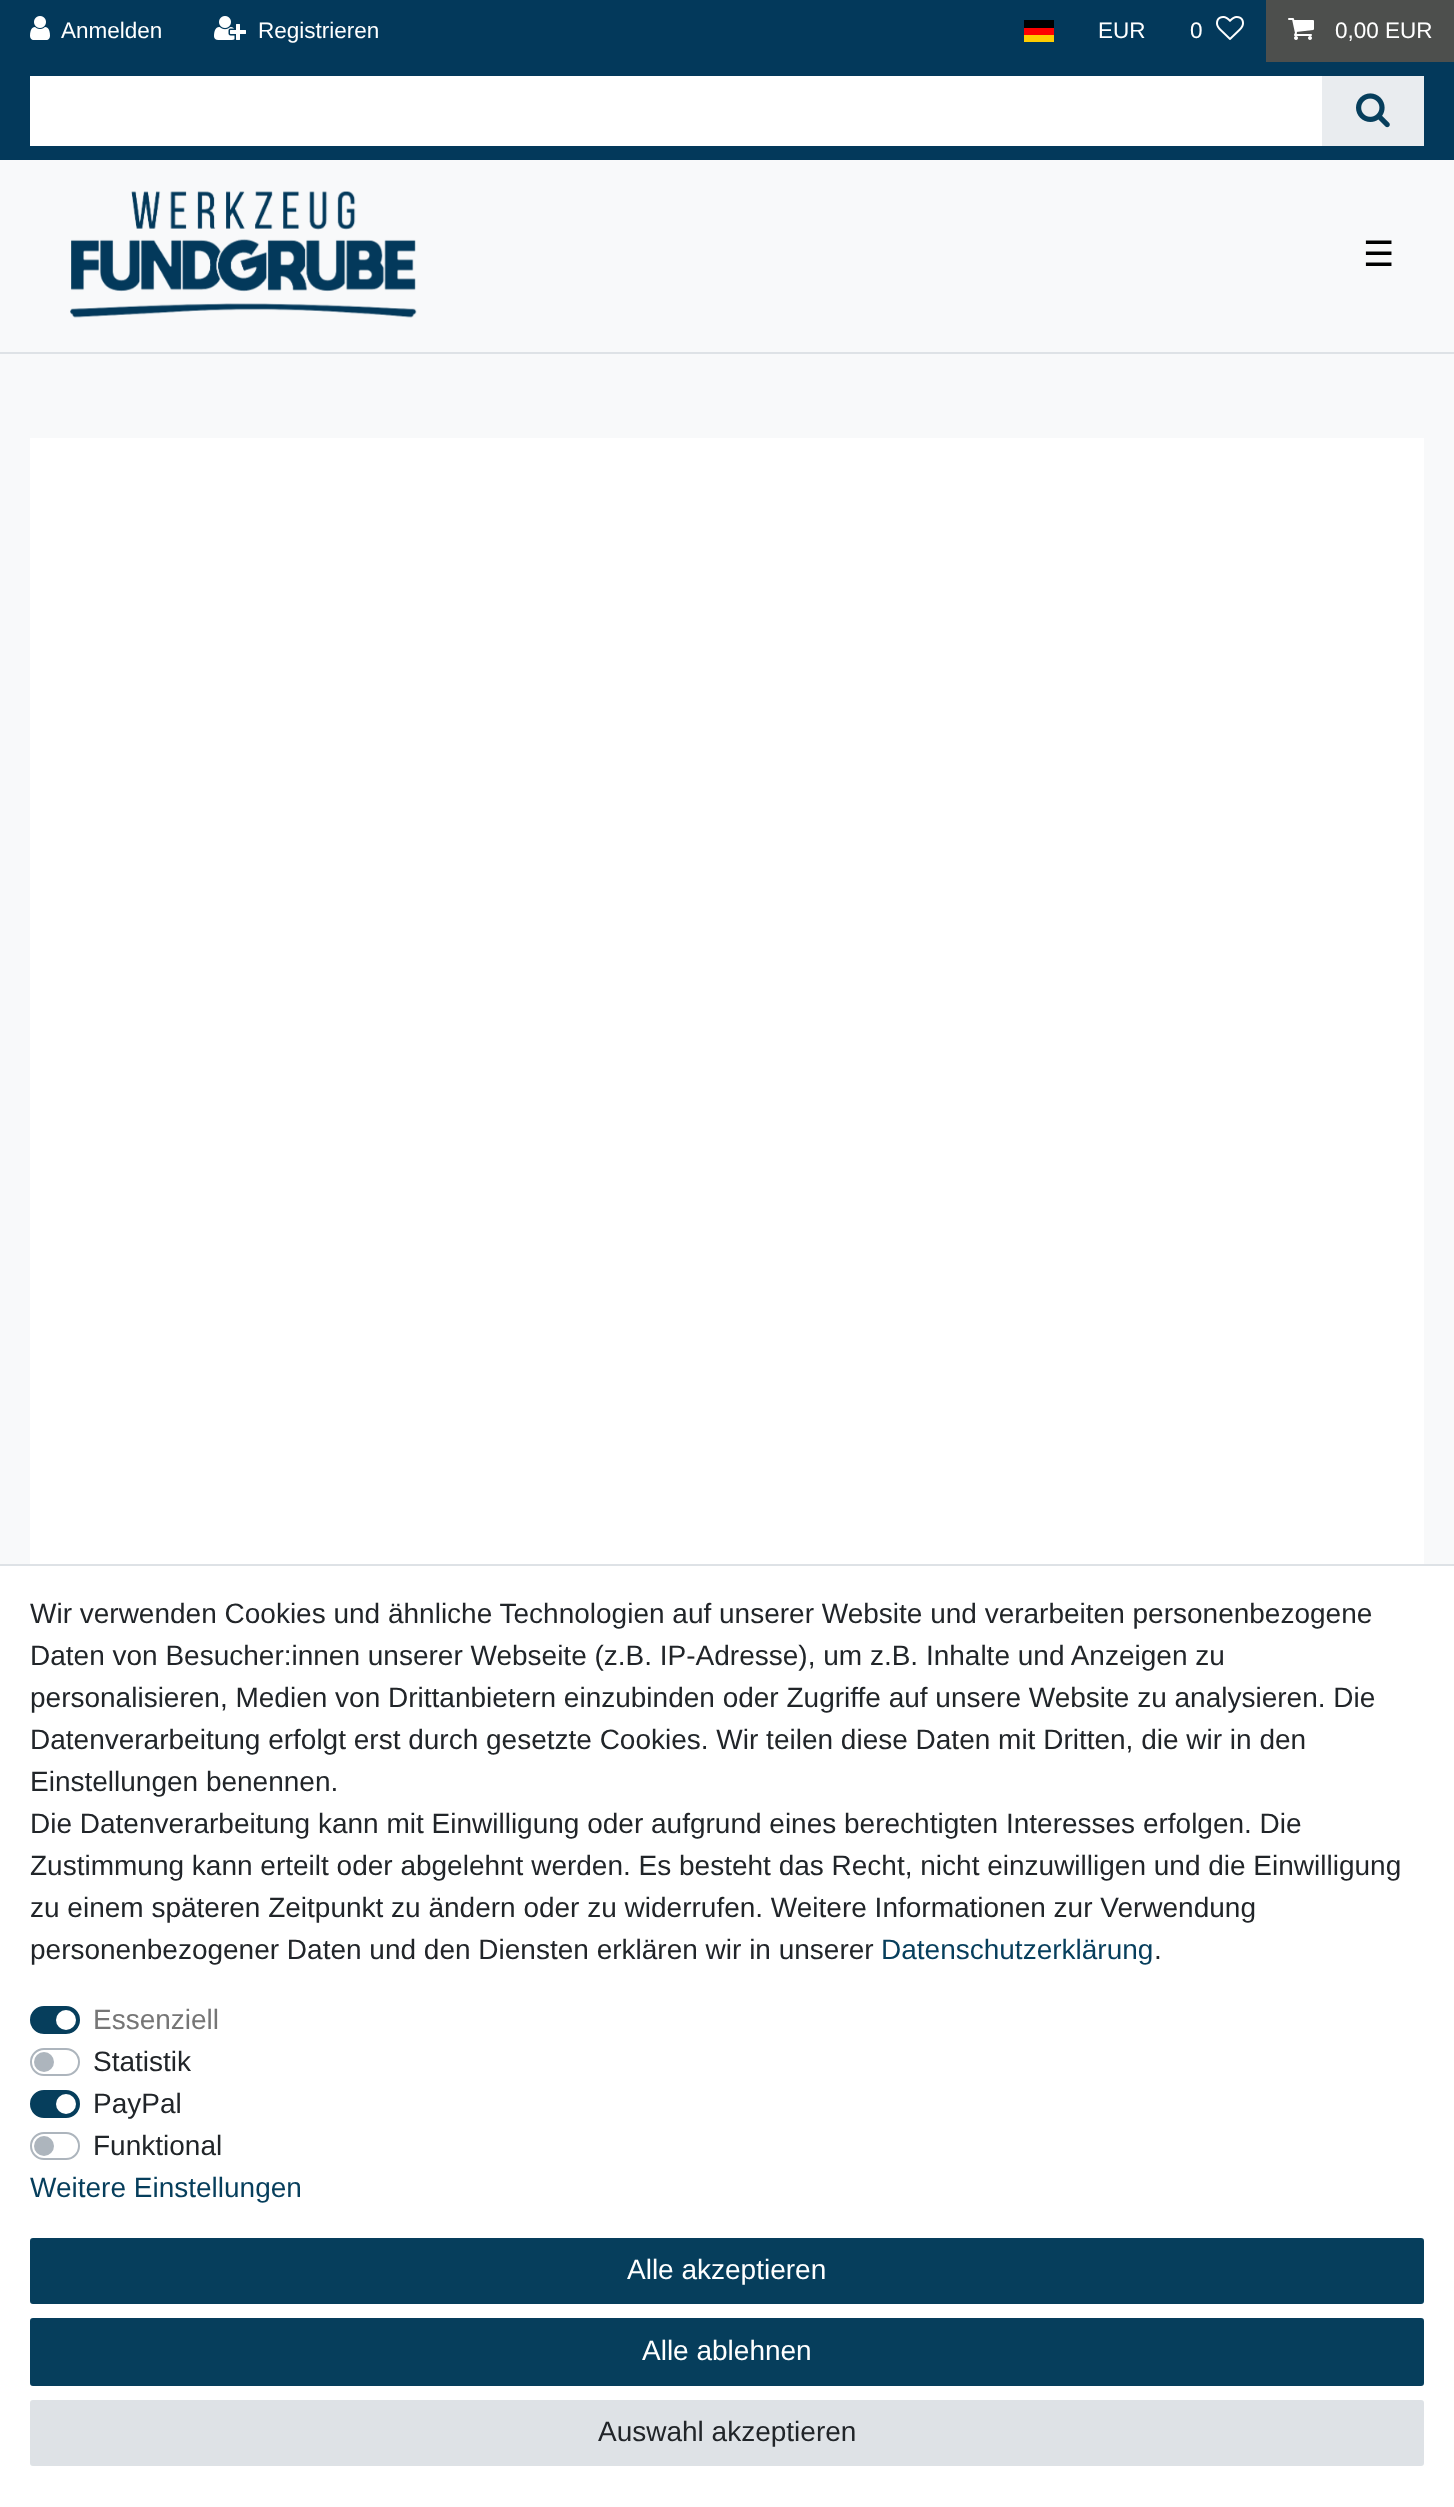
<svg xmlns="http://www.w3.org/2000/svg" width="1454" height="2507">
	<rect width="100%" height="100%" fill="#F8F9FA" />
	<rect x="0" y="0" width="1454" height="160" fill="#03395B" />
	<image x="30" y="16" width="20" height="24" href="assets/img1.png" />
	<text x="61" y="38" font-family="Liberation Sans" font-size="22.5" fill="#FFFFFF">Anmelden</text>
	<image x="214" y="16" width="32" height="24" href="assets/img2.png" />
	<text x="258" y="38" font-family="Liberation Sans" font-size="22.5" fill="#FFFFFF">Registrieren</text>
	<rect x="1024" y="35" width="30" height="7" fill="#FFCC00" />
	<rect x="1024" y="20" width="30" height="8" fill="#000000" />
	<rect x="1024" y="28" width="30" height="7" fill="#FF0000" />
	<g font-family="Liberation Sans" font-size="22.5" fill="#FFFFFF">
		<text x="1098" y="38">EUR</text>
		<text x="1190" y="38">0</text>
	</g>
	<image x="1216" y="16" width="28" height="24" href="assets/img3.png" />
	<rect x="1266" y="0" width="188" height="62" fill="#4D4F4D" />
	<image x="1288" y="18" width="26" height="22" href="assets/img4.png" />
	<text x="1335" y="38" font-family="Liberation Sans" font-size="22.5" fill="#FFFFFF">0,00 EUR</text>
	<rect x="30" y="76" width="1292" height="70" fill="#FFFFFF" />
	<rect x="1322" y="76" width="102" height="70" fill="#E9ECEF" />
	<image x="1356" y="93" width="34" height="35" href="assets/img5.png" />
	<rect x="0" y="352" width="1454" height="2" fill="#DEE2E6" />
	<image x="70" y="191" width="347" height="127" href="assets/img6.png" />
	<text x="1363" y="266" font-family="DejaVu Sans" font-size="35" fill="#000000">☰</text>
	<rect x="30" y="438" width="1394" height="1126" fill="#FFFFFF" />
	<rect x="0" y="1566" width="1454" height="941" fill="#FFFFFF" />
	<rect x="0" y="1564" width="1454" height="2" fill="#DEE2E6" />
	<g font-family="Liberation Sans" font-size="28" fill="#212529">
		<text x="30" y="1623">Wir verwenden Cookies und ähnliche Technologien auf unserer Website und verarbeiten personenbezogene</text>
		<text x="30" y="1665">Daten von Besucher:innen unserer Webseite (z.B. IP-Adresse), um z.B. Inhalte und Anzeigen zu</text>
		<text x="30" y="1707">personalisieren, Medien von Drittanbietern einzubinden oder Zugriffe auf unsere Website zu analysieren. Die</text>
		<text x="30" y="1749">Datenverarbeitung erfolgt erst durch gesetzte Cookies. Wir teilen diese Daten mit Dritten, die wir in den</text>
		<text x="30" y="1791">Einstellungen benennen.</text>
		<text x="30" y="1833">Die Datenverarbeitung kann mit Einwilligung oder aufgrund eines berechtigten Interesses erfolgen. Die</text>
		<text x="30" y="1875">Zustimmung kann erteilt oder abgelehnt werden. Es besteht das Recht, nicht einzuwilligen und die Einwilligung</text>
		<text x="30" y="1917">zu einem späteren Zeitpunkt zu ändern oder zu widerrufen. Weitere Informationen zur Verwendung</text>
		<text x="30" y="1959">personenbezogener Daten und den Diensten erklären wir in unserer</text>
	</g>
	<text x="881" y="1959" font-family="Liberation Sans" font-size="28" fill="#063E5C">Datenschutzerklärung</text>
	<text x="1154" y="1959" font-family="Liberation Sans" font-size="28" fill="#212529">.</text>
	<rect x="31" y="2007" width="48" height="26" rx="13" fill="#063E5C" stroke="#063E5C" stroke-width="2" />
	<text x="93" y="2029" font-family="Liberation Sans" font-size="28" fill="#767676">Essenziell</text>
	<circle cx="66" cy="2020" r="10" fill="#FFFFFF" />
	<rect x="31" y="2049" width="48" height="26" rx="13" fill="none" stroke="#ADB5BD" stroke-width="2" />
	<text x="93" y="2071" font-family="Liberation Sans" font-size="28" fill="#212529">Statistik</text>
	<circle cx="44" cy="2062" r="10" fill="#ADB5BD" />
	<rect x="31" y="2091" width="48" height="26" rx="13" fill="#063E5C" stroke="#063E5C" stroke-width="2" />
	<text x="93" y="2113" font-family="Liberation Sans" font-size="28" fill="#212529">PayPal</text>
	<circle cx="66" cy="2104" r="10" fill="#FFFFFF" />
	<rect x="31" y="2133" width="48" height="26" rx="13" fill="none" stroke="#ADB5BD" stroke-width="2" />
	<text x="93" y="2155" font-family="Liberation Sans" font-size="28" fill="#212529">Funktional</text>
	<circle cx="44" cy="2146" r="10" fill="#ADB5BD" />
	<text x="30" y="2197" font-family="Liberation Sans" font-size="28" fill="#063E5C">Weitere Einstellungen</text>
	<rect x="31" y="2239" width="1392" height="64" rx="2" fill="#063E5C" stroke="#063E5C" stroke-width="2" />
	<text x="627" y="2279" font-family="Liberation Sans" font-size="28" fill="#FFFFFF">Alle akzeptieren</text>
	<rect x="31" y="2319" width="1392" height="66" rx="2" fill="#063E5C" stroke="#063E5C" stroke-width="2" />
	<text x="642" y="2360" font-family="Liberation Sans" font-size="28" fill="#FFFFFF">Alle ablehnen</text>
	<rect x="31" y="2401" width="1392" height="64" rx="2" fill="#DEE2E6" stroke="#DEE2E6" stroke-width="2" />
	<text x="598" y="2441" font-family="Liberation Sans" font-size="28" fill="#212529">Auswahl akzeptieren</text>
</svg>
